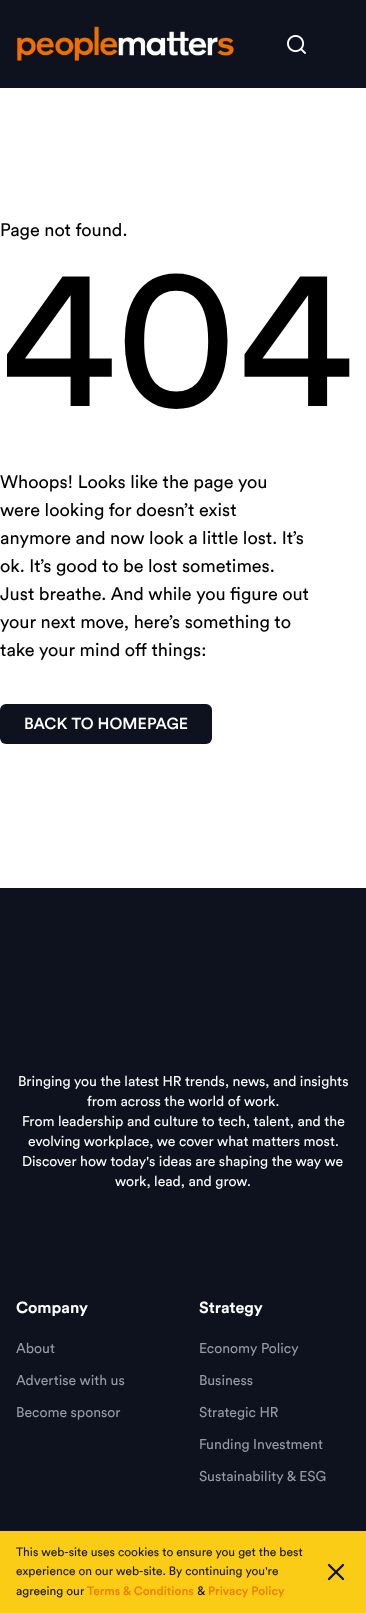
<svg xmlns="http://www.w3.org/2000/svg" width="366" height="1613">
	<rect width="100%" height="100%" fill="#FFFFFF" />
	<rect x="0" y="0" width="366" height="88" fill="#0D121E" />
	<image x="16" y="26" width="218" height="35" href="assets/img1.png" />
	<image x="287" y="35" width="19" height="19" href="assets/img2.png" />
	<text x="0" y="236" font-family="Circular" font-size="18" fill="#000000">Page not found.</text>
	<text x="0" y="406" font-family="Circular" font-size="200" fill="#000000">404</text>
	<g font-family="Circular" font-size="18" fill="#000000">
		<text x="0" y="488">Whoops! Looks like the page you</text>
		<text x="0" y="516">were looking for doesn’t exist</text>
		<text x="0" y="544">anymore and now look a little lost. It’s</text>
		<text x="0" y="572">ok. It’s good to be lost sometimes.</text>
		<text x="0" y="600">Just breathe. And while you figure out</text>
		<text x="0" y="628">your next move, here’s something to</text>
		<text x="0" y="656">take your mind off things:</text>
	</g>
	<rect x="0" y="704" width="212" height="40" rx="6" fill="#0D121E" />
	<text x="24" y="729" font-family="Circular" font-size="16" font-weight="500" fill="#FFFFFF">BACK TO HOMEPAGE</text>
	<rect x="0" y="888" width="366" height="643" fill="#0D121E" />
	<g font-family="Circular" font-size="14" fill="#FFFFFF">
		<text x="18" y="1086">Bringing you the latest HR trends, news, and insights</text>
		<text x="87" y="1106">from across the world of work.</text>
		<text x="22" y="1126">From leadership and culture to tech, talent, and the</text>
		<text x="28" y="1146">evolving workplace, we cover what matters most.</text>
		<text x="22" y="1166">Discover how today's ideas are shaping the way we</text>
		<text x="115" y="1186">work, lead, and grow.</text>
	</g>
	<text x="16" y="1313" font-family="Circular" font-size="16" font-weight="700" fill="#FFFFFF">Company</text>
	<g font-family="Circular" font-size="14" fill="#969BA2">
		<text x="16" y="1353">About</text>
		<text x="16" y="1385">Advertise with us</text>
		<text x="16" y="1417">Become sponsor</text>
	</g>
	<text x="199" y="1313" font-family="Circular" font-size="16" font-weight="700" fill="#FFFFFF">Strategy</text>
	<g font-family="Circular" font-size="14" fill="#969BA2">
		<text x="199" y="1353">Economy Policy</text>
		<text x="199" y="1385">Business</text>
		<text x="199" y="1417">Strategic HR</text>
		<text x="199" y="1449">Funding Investment</text>
		<text x="199" y="1481">Sustainability &amp; ESG</text>
	</g>
	<rect x="0" y="1531" width="366" height="82" fill="#FACC15" />
	<g font-family="Circular" font-size="12" fill="#121212">
		<text x="16" y="1556">This web-site uses cookies to ensure you get the best</text>
		<text x="16" y="1575">experience on our web-site. By continuing you're</text>
		<text x="16" y="1595">agreeing our</text>
	</g>
	<text x="87" y="1595" font-family="Circular" font-size="12" font-weight="500" fill="#F17C06">Terms &amp; Conditions</text>
	<text x="197" y="1595" font-family="Circular" font-size="12" fill="#121212">&amp;</text>
	<text x="208" y="1595" font-family="Circular" font-size="12" font-weight="500" fill="#F17C06">Privacy Policy</text>
	<path d="M343 1565L329 1579M329 1565L343 1579" fill="none" stroke="#121212" stroke-width="2.3" stroke-linecap="round" stroke-linejoin="round" />
</svg>
